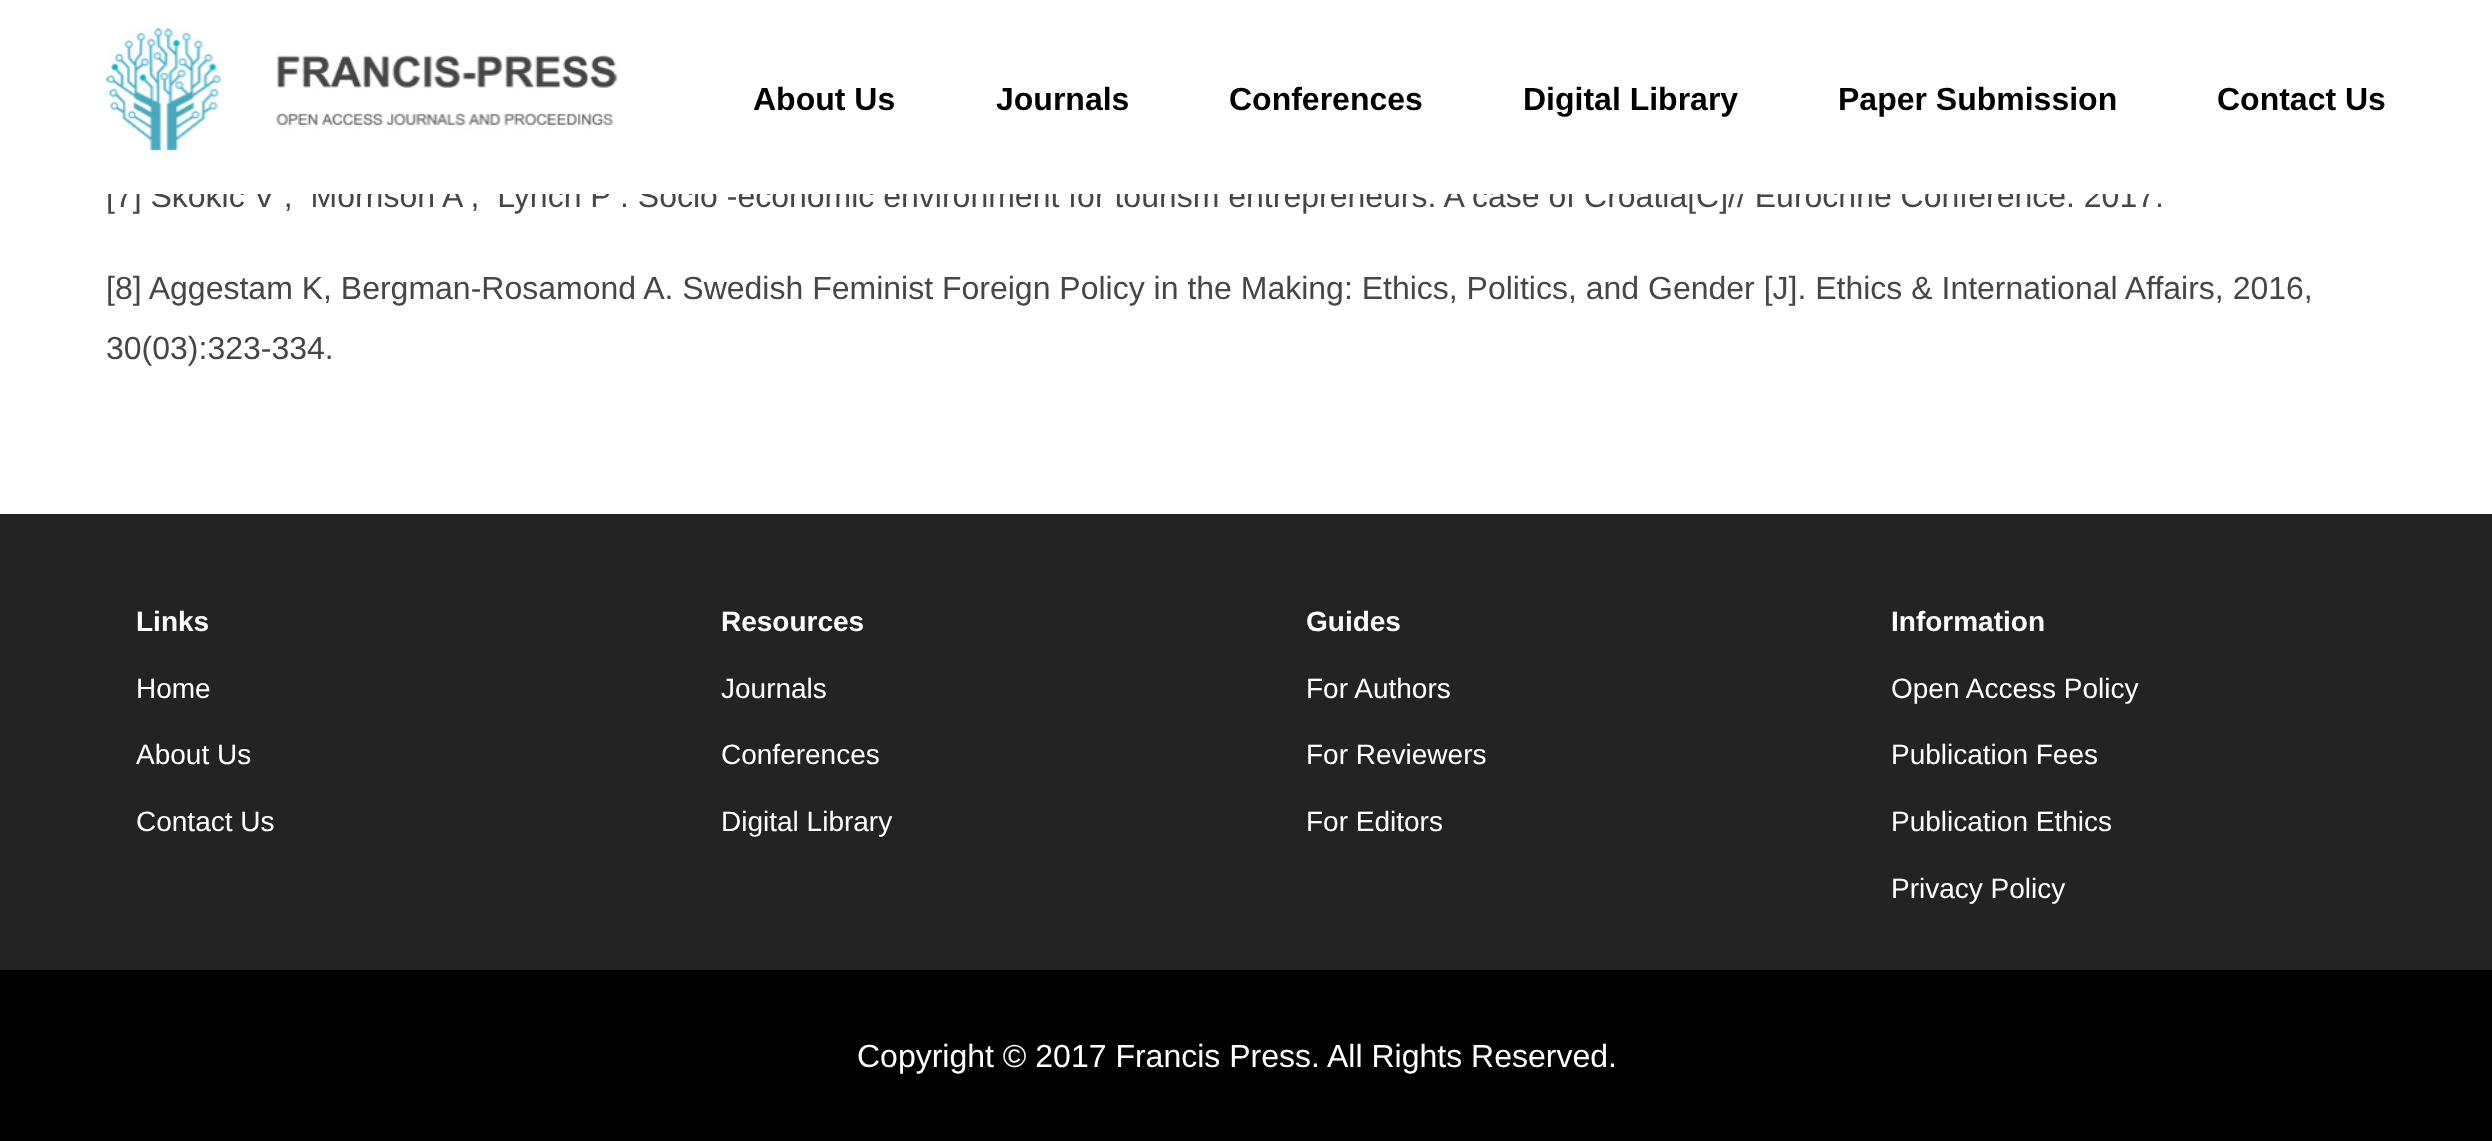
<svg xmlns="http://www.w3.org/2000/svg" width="2492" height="1141">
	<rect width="100%" height="100%" fill="#FFFFFF" />
	<text x="106" y="207" font-family="Liberation Sans" font-size="32" fill="#464646" xml:space="preserve">[7] Skokic V ,  Morrison A ,  Lynch P . Socio -economic environment for tourism entrepreneurs: A case of Croatia[C]// Eurochrie Conference. 2017.</text>
	<rect x="108" y="183" width="2046" height="11" fill="#FFFFFF" />
	<image x="106" y="28" width="512" height="123" href="assets/img1.png" />
	<g font-family="Liberation Sans" font-size="32" font-weight="700" fill="#000000">
		<text x="753" y="110">About Us</text>
		<text x="996" y="110">Journals</text>
		<text x="1229" y="110">Conferences</text>
		<text x="1523" y="110">Digital Library</text>
		<text x="1838" y="110">Paper Submission</text>
		<text x="2217" y="110">Contact Us</text>
	</g>
	<g font-family="Liberation Sans" font-size="32" fill="#464646">
		<text x="106" y="299">[8] Aggestam K, Bergman-Rosamond A. Swedish Feminist Foreign Policy in the Making: Ethics, Politics, and Gender [J]. Ethics &amp; International Affairs, 2016,</text>
		<text x="106" y="359">30(03):323-334.</text>
	</g>
	<rect x="0" y="514" width="2492" height="456" fill="#232323" />
	<text x="136" y="631" font-family="Liberation Sans" font-size="28" font-weight="700" fill="#FFFFFF">Links</text>
	<g font-family="Liberation Sans" font-size="28" fill="#FFFFFF">
		<text x="136" y="698">Home</text>
		<text x="136" y="764">About Us</text>
		<text x="136" y="831">Contact Us</text>
	</g>
	<text x="721" y="631" font-family="Liberation Sans" font-size="28" font-weight="700" fill="#FFFFFF">Resources</text>
	<g font-family="Liberation Sans" font-size="28" fill="#FFFFFF">
		<text x="721" y="698">Journals</text>
		<text x="721" y="764">Conferences</text>
		<text x="721" y="831">Digital Library</text>
	</g>
	<text x="1306" y="631" font-family="Liberation Sans" font-size="28" font-weight="700" fill="#FFFFFF">Guides</text>
	<g font-family="Liberation Sans" font-size="28" fill="#FFFFFF">
		<text x="1306" y="698">For Authors</text>
		<text x="1306" y="764">For Reviewers</text>
		<text x="1306" y="831">For Editors</text>
	</g>
	<text x="1891" y="631" font-family="Liberation Sans" font-size="28" font-weight="700" fill="#FFFFFF">Information</text>
	<g font-family="Liberation Sans" font-size="28" fill="#FFFFFF">
		<text x="1891" y="698">Open Access Policy</text>
		<text x="1891" y="764">Publication Fees</text>
		<text x="1891" y="831">Publication Ethics</text>
		<text x="1891" y="898">Privacy Policy</text>
	</g>
	<rect x="0" y="970" width="2492" height="171" fill="#000000" />
	<text x="857" y="1067" font-family="Liberation Sans" font-size="32" fill="#FFFFFF">Copyright © 2017 Francis Press. All Rights Reserved.</text>
</svg>
